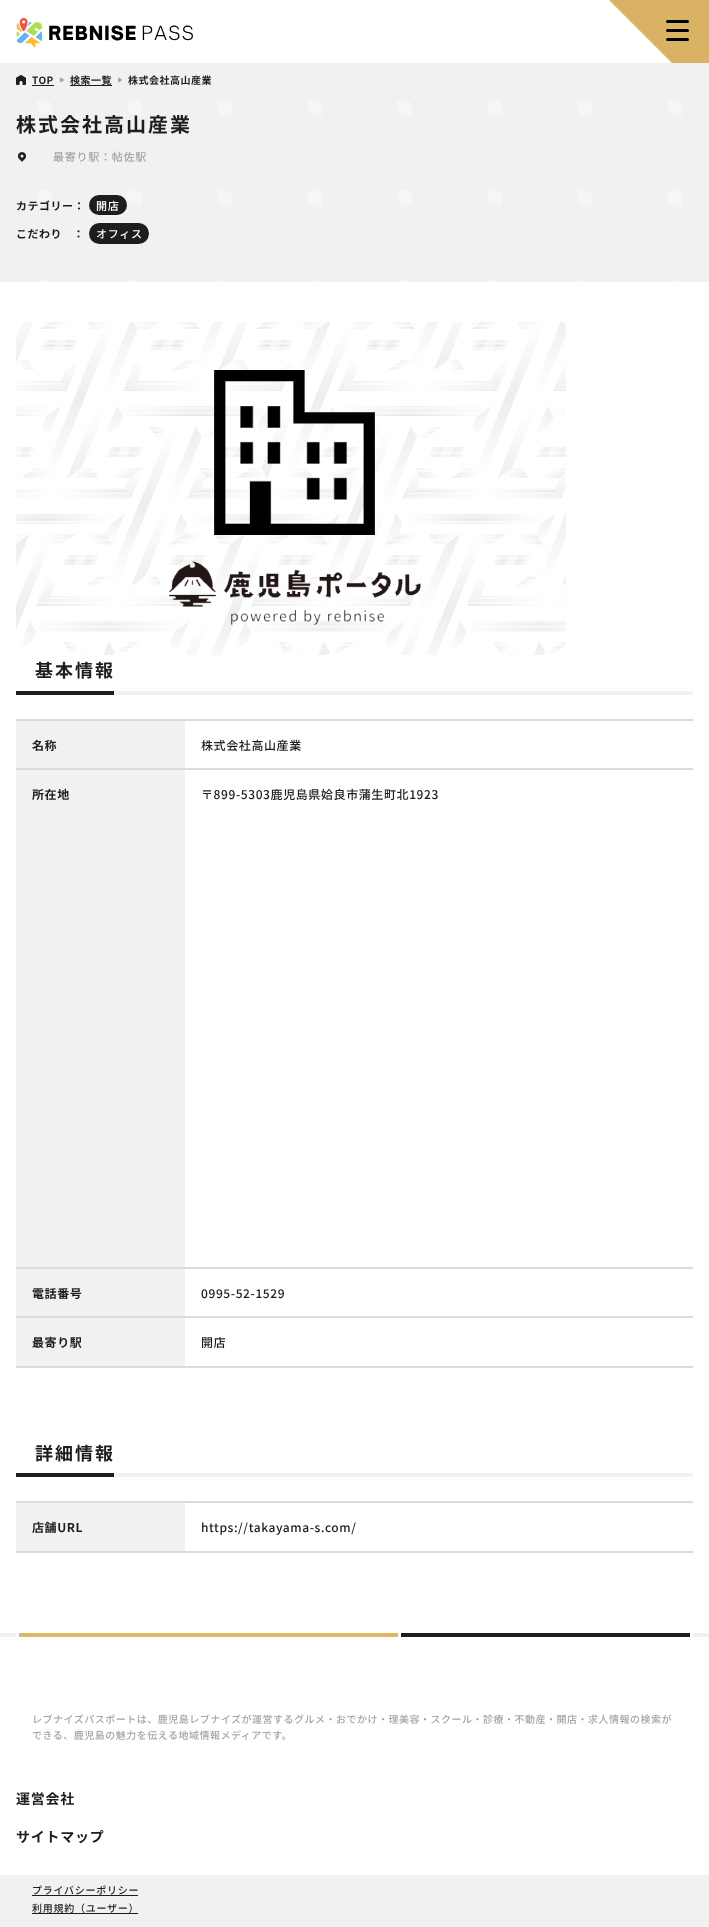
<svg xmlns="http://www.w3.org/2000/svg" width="709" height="1927">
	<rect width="100%" height="100%" fill="#FFFFFF" />
	<image x="16" y="18" width="177" height="30" href="assets/img1.png" />
	<path d="M609 0H709V100Z" fill="#D9B363" />
	<rect x="666" y="20" width="23" height="3" rx="1.5" fill="#000000" />
	<rect x="666" y="29" width="23" height="3" rx="1.5" fill="#000000" />
	<rect x="666" y="38" width="23" height="3" rx="1.5" fill="#000000" />
	<image x="0" y="63" width="709" height="219" href="assets/img2.png" />
	<image x="16" y="75" width="10" height="10" href="assets/img3.png" />
	<text x="32" y="84" font-family="Noto Sans JP" font-size="10" font-weight="700" letter-spacing="0.5" fill="#1D1D1D">TOP</text>
	<rect x="32" y="85" width="22" height="1" fill="#1D1D1D" />
	<image x="60" y="77" width="4" height="6" href="assets/img4.png" />
	<text x="70" y="84" font-family="Noto Sans JP" font-size="10" font-weight="700" letter-spacing="0.5" fill="#1D1D1D">検索一覧</text>
	<rect x="70" y="85" width="42" height="1" fill="#1D1D1D" />
	<image x="118" y="77" width="4" height="6" href="assets/img4.png" />
	<text x="128" y="84" font-family="Noto Sans JP" font-size="10" font-weight="700" letter-spacing="0.5" fill="#1D1D1D">株式会社高山産業</text>
	<text x="16" y="132" font-family="Noto Sans JP" font-size="20" font-weight="700" letter-spacing="2" fill="#1D1D1D">株式会社高山産業</text>
	<image x="18" y="152" width="8" height="10" href="assets/img5.png" />
	<text x="53" y="161" font-family="Noto Sans JP" font-size="11" font-weight="500" letter-spacing="0.75" fill="#A5A5A3">最寄り駅：帖佐駅</text>
	<text x="16" y="210" font-family="Noto Sans JP" font-size="11" font-weight="700" letter-spacing="0.5" fill="#1D1D1D">カテゴリー：</text>
	<rect x="89" y="195" width="38" height="20" rx="10" fill="#1D1D1D" />
	<text x="96" y="210" font-family="Noto Sans JP" font-size="11" font-weight="500" letter-spacing="0.75" fill="#FFFFFF">開店</text>
	<g font-family="Noto Sans JP" font-size="11" font-weight="700" letter-spacing="0.5" fill="#1D1D1D">
		<text x="16" y="238">こだわり</text>
		<text x="73" y="238">：</text>
	</g>
	<rect x="89" y="223" width="60" height="21" rx="10.5" fill="#1D1D1D" />
	<text x="96" y="238" font-family="Noto Sans JP" font-size="11" font-weight="500" letter-spacing="0.75" fill="#FFFFFF">オフィス</text>
	<image x="16" y="322" width="550" height="333" href="assets/img6.png" />
	<rect x="16" y="691" width="98" height="4" fill="#1D1D1D" />
	<text x="35" y="677" font-family="Noto Sans JP" font-size="18" font-weight="700" letter-spacing="2" fill="#1D1D1D">基本情報</text>
	<rect x="114" y="691" width="579" height="4" fill="#F1F1EF" />
	<rect x="16" y="719" width="677" height="2" fill="#DBDBD9" />
	<rect x="16" y="721" width="169" height="47" fill="#F1F1EF" />
	<text x="32" y="750" font-family="Noto Sans JP" font-size="12" font-weight="700" letter-spacing="0.6" fill="#1D1D1D">名称</text>
	<text x="201" y="750" font-family="Noto Sans JP" font-size="12" font-weight="500" letter-spacing="0.6" fill="#1D1D1D">株式会社高山産業</text>
	<rect x="16" y="768" width="677" height="2" fill="#DBDBD9" />
	<rect x="16" y="770" width="169" height="497" fill="#F1F1EF" />
	<text x="32" y="799" font-family="Noto Sans JP" font-size="12" font-weight="700" letter-spacing="0.6" fill="#1D1D1D">所在地</text>
	<text x="201" y="799" font-family="Noto Sans JP" font-size="12" font-weight="500" letter-spacing="0.6" fill="#1D1D1D">〒899-5303鹿児島県姶良市蒲生町北1923</text>
	<rect x="16" y="1267" width="677" height="2" fill="#DBDBD9" />
	<rect x="16" y="1269" width="169" height="47" fill="#F1F1EF" />
	<text x="32" y="1298" font-family="Noto Sans JP" font-size="12" font-weight="700" letter-spacing="0.6" fill="#1D1D1D">電話番号</text>
	<text x="201" y="1298" font-family="Noto Sans JP" font-size="12" font-weight="500" letter-spacing="0.6" fill="#1D1D1D">0995-52-1529</text>
	<rect x="16" y="1316" width="677" height="2" fill="#DBDBD9" />
	<rect x="16" y="1366" width="677" height="2" fill="#DBDBD9" />
	<rect x="16" y="1318" width="169" height="48" fill="#F1F1EF" />
	<text x="32" y="1347" font-family="Noto Sans JP" font-size="12" font-weight="700" letter-spacing="0.6" fill="#1D1D1D">最寄り駅</text>
	<text x="201" y="1347" font-family="Noto Sans JP" font-size="12" font-weight="500" letter-spacing="0.6" fill="#1D1D1D">開店</text>
	<rect x="16" y="1473" width="98" height="4" fill="#1D1D1D" />
	<text x="35" y="1460" font-family="Noto Sans JP" font-size="18" font-weight="700" letter-spacing="2" fill="#1D1D1D">詳細情報</text>
	<rect x="114" y="1473" width="579" height="4" fill="#F1F1EF" />
	<rect x="16" y="1501" width="677" height="2" fill="#DBDBD9" />
	<rect x="16" y="1551" width="677" height="2" fill="#DBDBD9" />
	<rect x="16" y="1503" width="169" height="48" fill="#F1F1EF" />
	<text x="32" y="1532" font-family="Noto Sans JP" font-size="12" font-weight="700" letter-spacing="0.6" fill="#1D1D1D">店舗URL</text>
	<text x="201" y="1532" font-family="Noto Sans JP" font-size="12" font-weight="500" letter-spacing="0.6" fill="#1D1D1D">https://takayama-s.com/</text>
	<rect x="0" y="1633" width="16" height="4" fill="#F1F1EF" />
	<rect x="19" y="1633" width="379" height="4" fill="#E0B764" />
	<rect x="401" y="1633" width="289" height="4" fill="#1D1D1D" />
	<rect x="693" y="1633" width="16" height="4" fill="#F1F1EF" />
	<g font-family="Noto Sans JP" font-size="10" font-weight="500" letter-spacing="0.5" fill="#A5A5A3">
		<text x="32" y="1723">レブナイズパスポートは、鹿児島レブナイズが運営するグルメ・おでかけ・理美容・スクール・診療・不動産・開店・求人情報の検索が</text>
		<text x="32" y="1739">できる、鹿児島の魅力を伝える地域情報メディアです。</text>
	</g>
	<g font-family="Noto Sans JP" font-size="14" font-weight="700" letter-spacing="0.75" fill="#1D1D1D">
		<text x="16" y="1804">運営会社</text>
		<text x="16" y="1842">サイトマップ</text>
	</g>
	<rect x="0" y="1875" width="709" height="52" fill="#F1F1EF" />
	<text x="32" y="1894" font-family="Noto Sans JP" font-size="10" font-weight="500" letter-spacing="0.75" fill="#1D1D1D">プライバシーポリシー</text>
	<rect x="32" y="1895" width="106" height="1" fill="#1D1D1D" />
	<text x="32" y="1912" font-family="Noto Sans JP" font-size="10" font-weight="500" letter-spacing="0.75" fill="#1D1D1D">利用規約（ユーザー）</text>
	<rect x="32" y="1913" width="106" height="1" fill="#1D1D1D" />
</svg>
